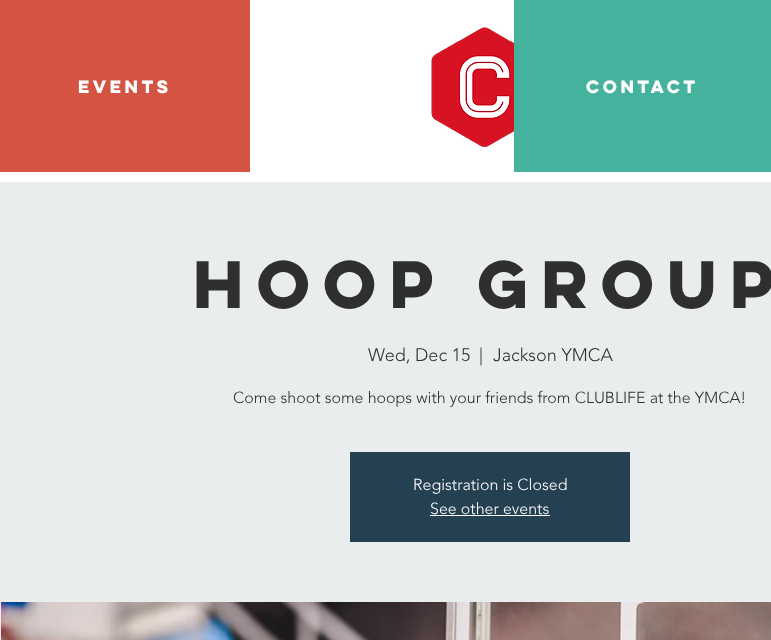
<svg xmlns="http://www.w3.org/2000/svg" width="771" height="640">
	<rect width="100%" height="100%" fill="#FFFFFF" />
	<rect x="0" y="0" width="250" height="172" fill="#D55342" />
	<text x="78" y="93" font-family="'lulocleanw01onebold'" font-size="16" font-weight="700" fill="#FFFFFF">EVENTS</text>
	<image x="431" y="27" width="83" height="121" href="assets/img1.png" />
	<rect x="514" y="0" width="257" height="172" fill="#45B29D" />
	<text x="586" y="93" font-family="'lulocleanw01onebold'" font-size="16" font-weight="700" fill="#FFFFFF">CONTACT</text>
	<rect x="0" y="182" width="771" height="458" fill="#EAEDEE" />
	<text x="193" y="308" font-family="'lulocleanw01onebold'" font-size="60" font-weight="700" fill="#2F2F2E">Hoop Group</text>
	<g font-family="'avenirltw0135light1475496'" font-size="18" font-weight="300" fill="#2F2F2E">
		<text x="368" y="361">Wed, Dec 15</text>
		<text x="479" y="361">|</text>
		<text x="493" y="361">Jackson YMCA</text>
	</g>
	<text x="233" y="403" font-family="'avenirltw0135light1475496'" font-size="16" font-weight="300" fill="#2F2F2E">Come shoot some hoops with your friends from CLUBLIFE at the YMCA!</text>
	<rect x="350" y="452" width="280" height="90" fill="#254151" />
	<g font-family="'avenirltw0135light1475496'" font-size="16" font-weight="300" fill="#FFFFFF">
		<text x="413" y="490">Registration is Closed</text>
		<text x="430" y="514">See other events</text>
	</g>
	<rect x="430" y="515" width="120" height="1" fill="#FFFFFF" />
	<image x="1" y="602" width="770" height="38" href="assets/img2.png" />
</svg>
